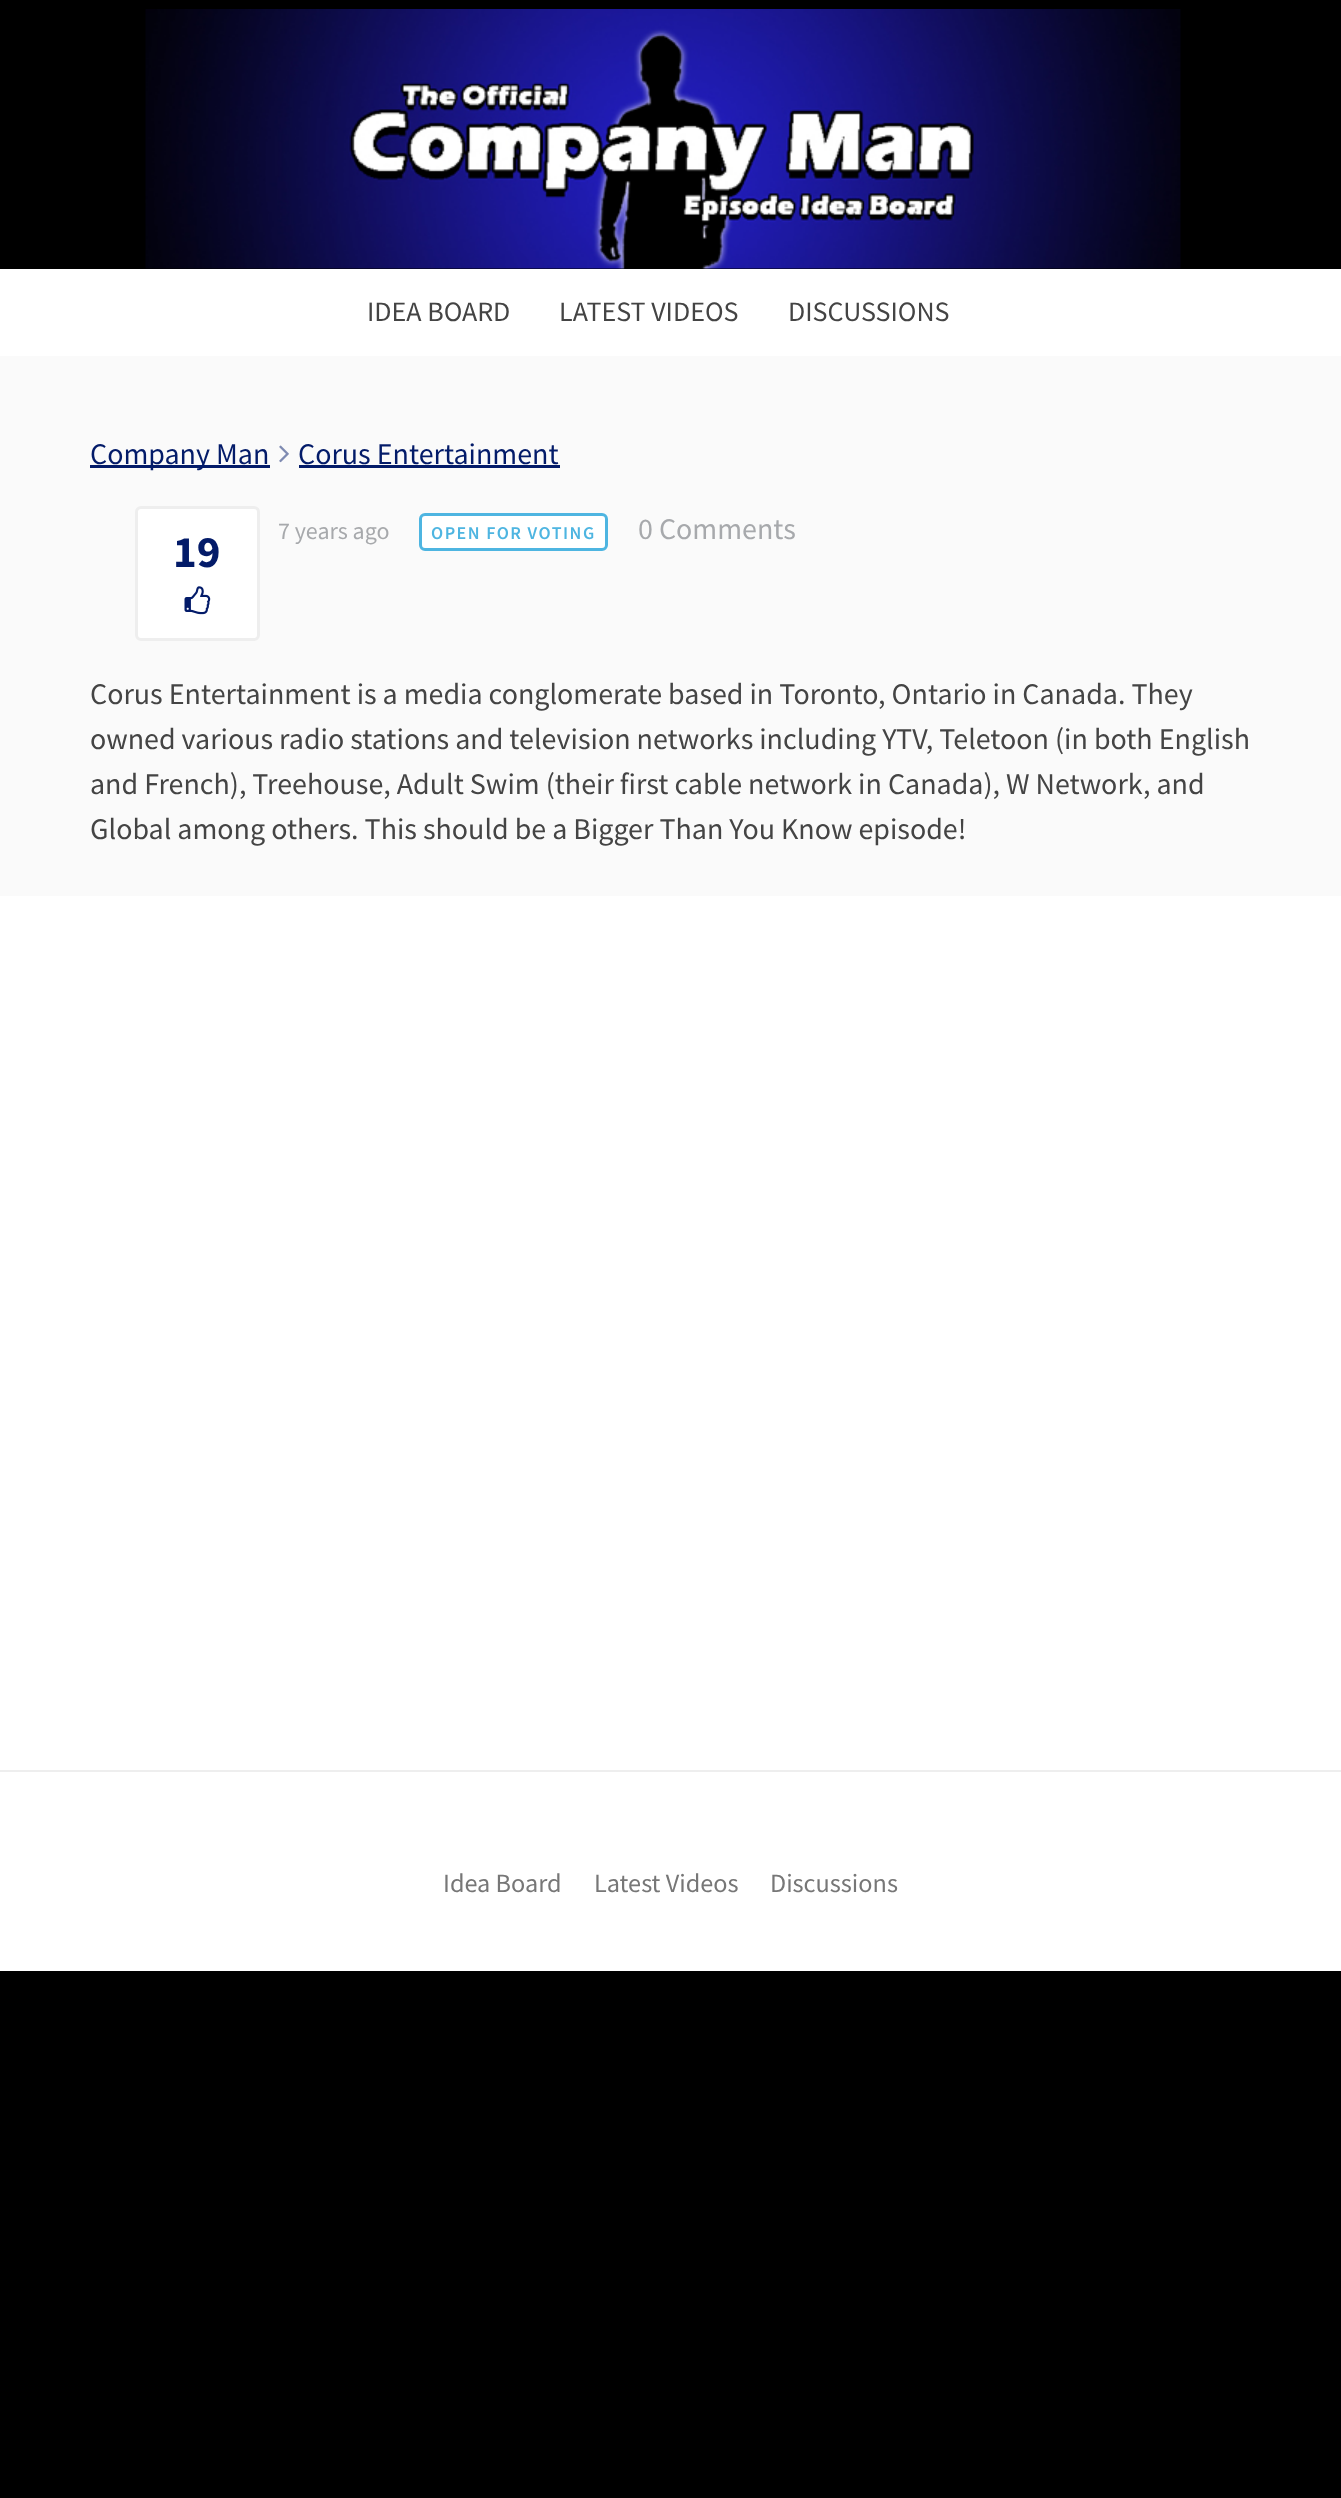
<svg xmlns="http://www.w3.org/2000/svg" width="1341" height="2498">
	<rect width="100%" height="100%" fill="#000000" />
	<rect x="0" y="269" width="1341" height="1702" fill="#FFFFFF" />
	<image x="145" y="9" width="1036" height="260" href="assets/img1.png" />
	<g font-family="Source Sans Pro" font-size="28" fill="#444444">
		<text x="367" y="321">IDEA BOARD</text>
		<text x="559" y="321">LATEST VIDEOS</text>
		<text x="788" y="321">DISCUSSIONS</text>
	</g>
	<rect x="0" y="356" width="1341" height="540" fill="#FAFAFA" />
	<rect x="90" y="465" width="180" height="3" fill="#031B69" />
	<text x="90" y="464" font-family="Source Sans Pro" font-size="30" fill="#031B69">Company Man</text>
	<image x="279" y="445" width="10" height="18" href="assets/img2.png" />
	<text x="298" y="464" font-family="Source Sans Pro" font-size="30" fill="#031B69">Corus Entertainment</text>
	<rect x="299" y="465" width="261" height="3" fill="#031B69" />
	<text x="278" y="539" font-family="Source Sans Pro" font-size="24" fill="#A7A9AC">7 years ago</text>
	<rect x="420.5" y="514.5" width="186" height="35" rx="4.5" fill="#FFFFFF" stroke="#4EB5E1" stroke-width="3" />
	<text x="431" y="539" font-family="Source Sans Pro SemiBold" font-size="18" font-weight="600" letter-spacing="1.5" fill="#4EB5E1">OPEN FOR VOTING</text>
	<text x="638" y="539" font-family="Source Sans Pro" font-size="30" fill="#A7A9AC">0 Comments</text>
	<rect x="136.5" y="507.5" width="122" height="132" rx="4.5" fill="#FFFFFF" stroke="#EEEEEE" stroke-width="3" />
	<text x="173" y="567" font-family="Source Sans Pro" font-size="45" font-weight="700" fill="#031B69">19</text>
	<image x="184" y="586" width="27" height="29" href="assets/img3.png" />
	<g font-family="Source Sans Pro" font-size="30" fill="#444444">
		<text x="90" y="704">Corus Entertainment is a media conglomerate based in Toronto, Ontario in Canada. They</text>
		<text x="90" y="749">owned various radio stations and television networks including YTV, Teletoon (in both English</text>
		<text x="90" y="794">and French), Treehouse, Adult Swim (their first cable network in Canada), W Network, and</text>
		<text x="90" y="839">Global among others. This should be a Bigger Than You Know episode!</text>
	</g>
	<rect x="0" y="1770" width="1341" height="2" fill="#EEEEEE" />
	<g font-family="Source Sans Pro" font-size="26.25" fill="#777777">
		<text x="443" y="1892">Idea Board</text>
		<text x="594" y="1892">Latest Videos</text>
		<text x="770" y="1892">Discussions</text>
	</g>
</svg>
